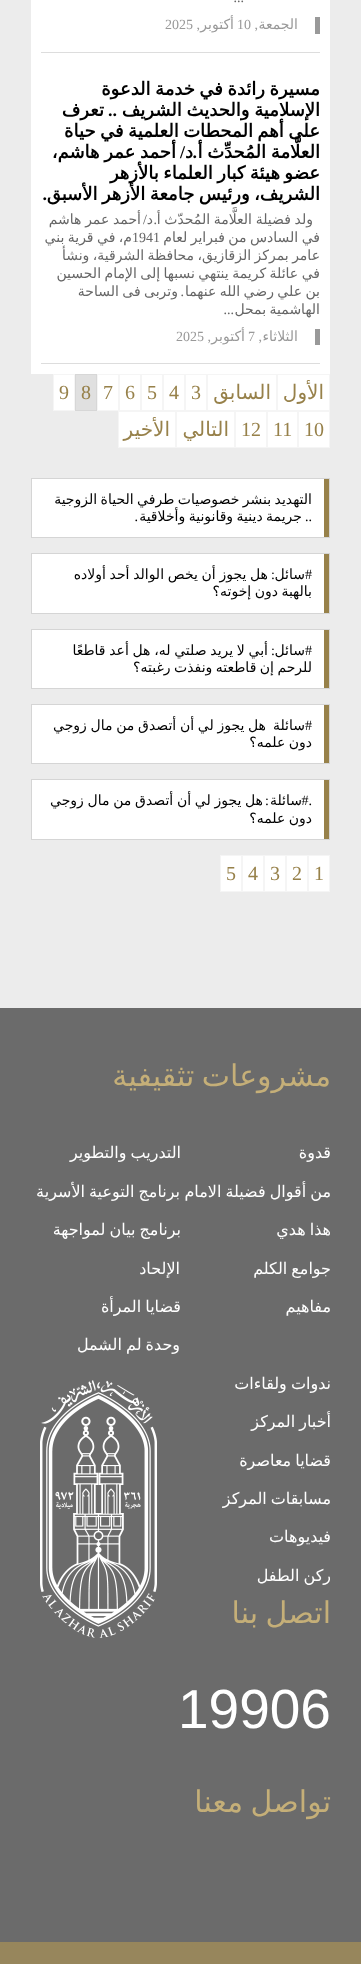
<svg xmlns="http://www.w3.org/2000/svg" width="361" height="1964">
	<rect width="100%" height="100%" fill="#ECECEC" />
	<rect x="31" y="0" width="299" height="374" fill="#FFFFFF" />
	<rect x="41" y="52" width="279" height="1" fill="#DDDDDD" />
	<text x="244" y="2" font-family="Liberation Serif" font-size="14" direction="rtl" fill="#666666">...</text>
	<rect x="315" y="17" width="5" height="17" fill="#999999" />
	<text x="298" y="29" font-family="DejaVu Sans" font-size="14" direction="rtl" fill="#999999">الجمعة</text>
	<text x="258" y="29" font-family="Liberation Serif" font-size="14" direction="rtl" fill="#999999">,</text>
	<text x="237" y="29" font-family="Liberation Serif" font-size="14" fill="#999999">10</text>
	<text x="200" y="29" font-family="Liberation Serif" font-size="14" direction="rtl" fill="#999999">,</text>
	<text x="234" y="29" font-family="DejaVu Sans" font-size="14" direction="rtl" fill="#999999">أكتوبر</text>
	<text x="165" y="29" font-family="Liberation Serif" font-size="14" fill="#999999">2025</text>
	<rect x="41" y="363" width="279" height="1" fill="#DDDDDD" />
	<g font-family="DejaVu Sans" font-size="18" font-weight="700" direction="rtl" fill="#000000">
		<text x="320" y="95" word-spacing="-1.25">مسيرة رائدة في خدمة الدعوة</text>
		<text x="320" y="116" word-spacing="-1">الإسلامية والحديث الشريف</text>
	</g>
	<text x="117" y="116" font-family="Liberation Serif" font-size="18" font-weight="700" direction="rtl" fill="#000000">..</text>
	<g font-family="DejaVu Sans" font-size="18" font-weight="700" direction="rtl" fill="#000000">
		<text x="104" y="116">تعرف</text>
		<text x="320" y="137" word-spacing="-1.25">على أهم المحطات العلمية في حياة</text>
		<text x="320" y="158" word-spacing="-1">العلَّامة المُحدِّث أ</text>
	</g>
	<g font-family="Liberation Serif" font-size="18" font-weight="700" direction="rtl" fill="#000000">
		<text x="197" y="158">.</text>
		<text x="185" y="158">/</text>
	</g>
	<g font-family="DejaVu Sans" font-size="18" font-weight="700" direction="rtl" fill="#000000">
		<text x="193" y="158">د</text>
		<text x="176" y="158" word-spacing="-1">أحمد عمر هاشم،</text>
		<text x="320" y="179" word-spacing="-1.25">عضو هيئة كبار العلماء بالأزهر</text>
		<text x="320" y="200" word-spacing="-1.25">الشريف، ورئيس جامعة الأزهر الأسبق</text>
	</g>
	<text x="47" y="200" font-family="Liberation Serif" font-size="18" font-weight="700" direction="rtl" fill="#000000">.</text>
	<text x="313" y="224" word-spacing="-0.75" font-family="DejaVu Sans" font-size="14" direction="rtl" fill="#666666">ولد فضيلة العلَّامة المُحدّث أ</text>
	<text x="157" y="224" font-family="Liberation Serif" font-size="14" direction="rtl" fill="#666666">.</text>
	<text x="153" y="224" font-family="DejaVu Sans" font-size="14" direction="rtl" fill="#666666">د</text>
	<text x="147" y="224" font-family="Liberation Serif" font-size="14" direction="rtl" fill="#666666">/</text>
	<g font-family="DejaVu Sans" font-size="14" direction="rtl" fill="#666666">
		<text x="141" y="224" word-spacing="-0.75">أحمد عمر هاشم</text>
		<text x="320" y="242" word-spacing="-1">في السادس من فبراير لعام</text>
		<text x="132" y="242" word-spacing="-1">م، في قرية بني</text>
	</g>
	<text x="132" y="242" font-family="Liberation Serif" font-size="14" fill="#666666">1941</text>
	<g font-family="DejaVu Sans" font-size="14" direction="rtl" fill="#666666">
		<text x="320" y="260" word-spacing="-1">عامر بمركز الزقازيق، محافظة الشرقية، ونشأ</text>
		<text x="320" y="278" word-spacing="-1">في عائلة كريمة ينتهي نسبها إلى الإمام الحسين</text>
		<text x="320" y="296" word-spacing="-1">بن علي رضي الله عنهما</text>
	</g>
	<text x="184" y="296" font-family="Liberation Serif" font-size="14" direction="rtl" fill="#666666">.</text>
	<g font-family="DejaVu Sans" font-size="14" direction="rtl" fill="#666666">
		<text x="178" y="296" word-spacing="-1">وتربى فى الساحة</text>
		<text x="320" y="314" word-spacing="-1">الهاشمية بمحل</text>
	</g>
	<text x="234" y="314" font-family="Liberation Serif" font-size="14" direction="rtl" fill="#666666">...</text>
	<rect x="315" y="329" width="5" height="16" fill="#999999" />
	<text x="298" y="341" font-family="DejaVu Sans" font-size="14" direction="rtl" fill="#999999">الثلاثاء</text>
	<text x="248" y="341" font-family="Liberation Serif" font-size="14" fill="#999999">7</text>
	<text x="211" y="341" font-family="Liberation Serif" font-size="14" direction="rtl" fill="#999999">,</text>
	<text x="245" y="341" font-family="DejaVu Sans" font-size="14" direction="rtl" fill="#999999">أكتوبر</text>
	<text x="176" y="341" font-family="Liberation Serif" font-size="14" fill="#999999">2025</text>
	<text x="262" y="341" font-family="Liberation Serif" font-size="14" direction="rtl" fill="#999999">,</text>
	<rect x="277.5" y="374.5" width="52" height="36" fill="#FFFFFF" stroke="#F5F5F5" />
	<text x="324" y="399" font-family="DejaVu Sans" font-size="20" direction="rtl" fill="#97814A">الأول</text>
	<rect x="207.5" y="374.5" width="69" height="36" fill="#FFFFFF" stroke="#F5F5F5" />
	<text x="271" y="399" font-family="DejaVu Sans" font-size="20" direction="rtl" fill="#97814A">السابق</text>
	<rect x="185.5" y="374.5" width="21" height="36" fill="#FFFFFF" stroke="#F5F5F5" />
	<text x="191" y="399" font-family="Liberation Serif" font-size="20" fill="#97814A">3</text>
	<rect x="163.5" y="374.5" width="21" height="36" fill="#FFFFFF" stroke="#F5F5F5" />
	<text x="169" y="399" font-family="Liberation Serif" font-size="20" fill="#97814A">4</text>
	<rect x="141.5" y="374.5" width="21" height="36" fill="#FFFFFF" stroke="#F5F5F5" />
	<text x="147" y="399" font-family="Liberation Serif" font-size="20" fill="#97814A">5</text>
	<rect x="119.5" y="374.5" width="21" height="36" fill="#FFFFFF" stroke="#F5F5F5" />
	<text x="125" y="399" font-family="Liberation Serif" font-size="20" fill="#97814A">6</text>
	<rect x="97.5" y="374.5" width="21" height="36" fill="#FFFFFF" stroke="#F5F5F5" />
	<text x="103" y="399" font-family="Liberation Serif" font-size="20" fill="#97814A">7</text>
	<rect x="75.5" y="374.5" width="21" height="36" fill="#E0E0E0" stroke="#D7D7D7" />
	<text x="81" y="399" font-family="Liberation Serif" font-size="20" fill="#97814A">8</text>
	<rect x="53.5" y="374.5" width="21" height="36" fill="#FFFFFF" stroke="#F5F5F5" />
	<text x="59" y="399" font-family="Liberation Serif" font-size="20" fill="#97814A">9</text>
	<rect x="298.5" y="411.5" width="31" height="36" fill="#FFFFFF" stroke="#F5F5F5" />
	<text x="304" y="436" font-family="Liberation Serif" font-size="20" fill="#97814A">10</text>
	<rect x="267.5" y="411.5" width="30" height="36" fill="#FFFFFF" stroke="#F5F5F5" />
	<text x="273" y="436" font-family="Liberation Serif" font-size="20" fill="#97814A">11</text>
	<rect x="235.5" y="411.5" width="31" height="36" fill="#FFFFFF" stroke="#F5F5F5" />
	<text x="241" y="436" font-family="Liberation Serif" font-size="20" fill="#97814A">12</text>
	<rect x="176.5" y="411.5" width="58" height="36" fill="#FFFFFF" stroke="#F5F5F5" />
	<text x="229" y="436" font-family="DejaVu Sans" font-size="20" direction="rtl" fill="#97814A">التالي</text>
	<rect x="118.5" y="411.5" width="57" height="36" fill="#FFFFFF" stroke="#F5F5F5" />
	<text x="170" y="436" font-family="DejaVu Sans" font-size="20" direction="rtl" fill="#97814A">الأخير</text>
	<rect x="32" y="479" width="292" height="58" fill="#FFFFFF" />
	<rect x="31.5" y="478.5" width="298" height="59" fill="none" stroke="#D5D5D5" />
	<rect x="324" y="479" width="5" height="58" fill="#97814A" />
	<text x="312" y="504" word-spacing="-1" font-family="DejaVu Sans" font-size="14" direction="rtl" fill="#000000">التهديد بنشر خصوصيات طرفي الحياة الزوجية</text>
	<text x="312" y="521" font-family="Liberation Serif" font-size="14" direction="rtl" fill="#000000">..</text>
	<text x="302" y="521" word-spacing="-1" font-family="DejaVu Sans" font-size="14" direction="rtl" fill="#000000">جريمة دينية وقانونية وأخلاقية</text>
	<text x="138" y="521" font-family="Liberation Serif" font-size="14" direction="rtl" fill="#000000">.</text>
	<rect x="32" y="554" width="292" height="59" fill="#FFFFFF" />
	<rect x="31.5" y="553.5" width="298" height="60" fill="none" stroke="#D5D5D5" />
	<rect x="324" y="554" width="5" height="59" fill="#97814A" />
	<text x="312" y="579" font-family="Liberation Serif" font-size="14" direction="rtl" fill="#000000">#</text>
	<g font-family="DejaVu Sans" font-size="14" direction="rtl" fill="#000000">
		<text x="305" y="579">سائل</text>
		<text x="268" y="579" word-spacing="-0.75">هل يجوز أن يخص الوالد أحد أولاده</text>
	</g>
	<text x="275" y="579" font-family="Liberation Serif" font-size="14" direction="rtl" fill="#000000">:</text>
	<text x="312" y="596" word-spacing="-1" font-family="DejaVu Sans" font-size="14" direction="rtl" fill="#000000">بالهبة دون إخوته؟</text>
	<rect x="32" y="630" width="292" height="58" fill="#FFFFFF" />
	<rect x="31.5" y="629.5" width="298" height="59" fill="none" stroke="#D5D5D5" />
	<rect x="324" y="630" width="5" height="58" fill="#97814A" />
	<text x="312" y="655" font-family="Liberation Serif" font-size="14" direction="rtl" fill="#000000">#</text>
	<g font-family="DejaVu Sans" font-size="14" direction="rtl" fill="#000000">
		<text x="305" y="655">سائل</text>
		<text x="268" y="655" word-spacing="-0.75">أبي لا يريد صلتي له، هل أعد قاطعًا</text>
	</g>
	<text x="275" y="655" font-family="Liberation Serif" font-size="14" direction="rtl" fill="#000000">:</text>
	<text x="312" y="672" word-spacing="-1" font-family="DejaVu Sans" font-size="14" direction="rtl" fill="#000000">للرحم إن قاطعته ونفذت رغبته؟</text>
	<rect x="32" y="705" width="292" height="58" fill="#FFFFFF" />
	<rect x="31.5" y="704.5" width="298" height="59" fill="none" stroke="#D5D5D5" />
	<rect x="324" y="705" width="5" height="58" fill="#97814A" />
	<text x="312" y="730" font-family="Liberation Serif" font-size="14" direction="rtl" fill="#000000">#</text>
	<g font-family="DejaVu Sans" font-size="14" direction="rtl" fill="#000000">
		<text x="305" y="730">سائلة</text>
		<text x="266" y="730" word-spacing="-0.75">هل يجوز لي أن أتصدق من مال زوجي</text>
		<text x="312" y="747" word-spacing="-1">دون علمه؟</text>
	</g>
	<rect x="32" y="780" width="292" height="59" fill="#FFFFFF" />
	<rect x="31.5" y="779.5" width="298" height="60" fill="none" stroke="#D5D5D5" />
	<rect x="324" y="780" width="5" height="59" fill="#97814A" />
	<text x="312" y="805" font-family="Liberation Serif" font-size="14" direction="rtl" fill="#000000">.#</text>
	<g font-family="DejaVu Sans" font-size="14" direction="rtl" fill="#000000">
		<text x="302" y="805">سائلة</text>
		<text x="263" y="805" word-spacing="-0.75">هل يجوز لي أن أتصدق من مال زوجي</text>
	</g>
	<text x="269" y="805" font-family="Liberation Serif" font-size="14" direction="rtl" fill="#000000">:</text>
	<text x="312" y="823" word-spacing="-1" font-family="DejaVu Sans" font-size="14" direction="rtl" fill="#000000">دون علمه؟</text>
	<rect x="308.5" y="855.5" width="21" height="36" fill="#FFFFFF" stroke="#F5F5F5" />
	<text x="314" y="880" font-family="Liberation Serif" font-size="20" fill="#97814A">1</text>
	<rect x="286.5" y="855.5" width="21" height="36" fill="#FFFFFF" stroke="#F5F5F5" />
	<text x="292" y="880" font-family="Liberation Serif" font-size="20" fill="#97814A">2</text>
	<rect x="264.5" y="855.5" width="21" height="36" fill="#FFFFFF" stroke="#F5F5F5" />
	<text x="270" y="880" font-family="Liberation Serif" font-size="20" fill="#97814A">3</text>
	<rect x="242.5" y="855.5" width="21" height="36" fill="#FFFFFF" stroke="#F5F5F5" />
	<text x="248" y="880" font-family="Liberation Serif" font-size="20" fill="#97814A">4</text>
	<rect x="220.5" y="855.5" width="21" height="36" fill="#FFFFFF" stroke="#F5F5F5" />
	<text x="226" y="880" font-family="Liberation Serif" font-size="20" fill="#97814A">5</text>
	<rect x="0" y="1008" width="361" height="934" fill="#6B6B6B" />
	<text x="331" y="1086" word-spacing="-2" font-family="DejaVu Sans" font-size="30" direction="rtl" fill="#C5AF78">مشروعات تثقيفية</text>
	<g font-family="DejaVu Sans" font-size="16" direction="rtl" fill="#FFFFFF">
		<text x="331" y="1158">قدوة</text>
		<text x="331" y="1197" word-spacing="-1">من أقوال فضيلة الامام</text>
		<text x="331" y="1235" word-spacing="-1">هذا هدي</text>
		<text x="331" y="1274" word-spacing="-1">جوامع الكلم</text>
		<text x="331" y="1312">مفاهيم</text>
		<text x="181" y="1158" word-spacing="-1">التدريب والتطوير</text>
		<text x="180" y="1197" word-spacing="-1">برنامج التوعية الأسرية</text>
		<text x="181" y="1235" word-spacing="-1">برنامج بيان لمواجهة</text>
		<text x="180" y="1274">الإلحاد</text>
		<text x="181" y="1312" word-spacing="-1">قضايا المرأة</text>
		<text x="180" y="1350" word-spacing="-1">وحدة لم الشمل</text>
		<text x="331" y="1389" word-spacing="-1">ندوات ولقاءات</text>
		<text x="331" y="1427" word-spacing="-1">أخبار المركز</text>
		<text x="331" y="1466" word-spacing="-1">قضايا معاصرة</text>
		<text x="331" y="1504" word-spacing="-1">مسابقات المركز</text>
		<text x="331" y="1542">فيديوهات</text>
		<text x="331" y="1581" word-spacing="-1">ركن الطفل</text>
	</g>
	<image x="40" y="1380" width="117" height="258" href="assets/img1.png" />
	<text x="331" y="1623" word-spacing="-2" font-family="DejaVu Sans" font-size="30" direction="rtl" fill="#C5AF78">اتصل بنا</text>
	<text x="178" y="1728" font-family="Liberation Sans" font-size="55" fill="#FFFFFF">19906</text>
	<text x="331" y="1812" word-spacing="-2" font-family="DejaVu Sans" font-size="30" direction="rtl" fill="#C5AF78">تواصل معنا</text>
	<rect x="0" y="1942" width="361" height="22" fill="#97865C" />
</svg>
